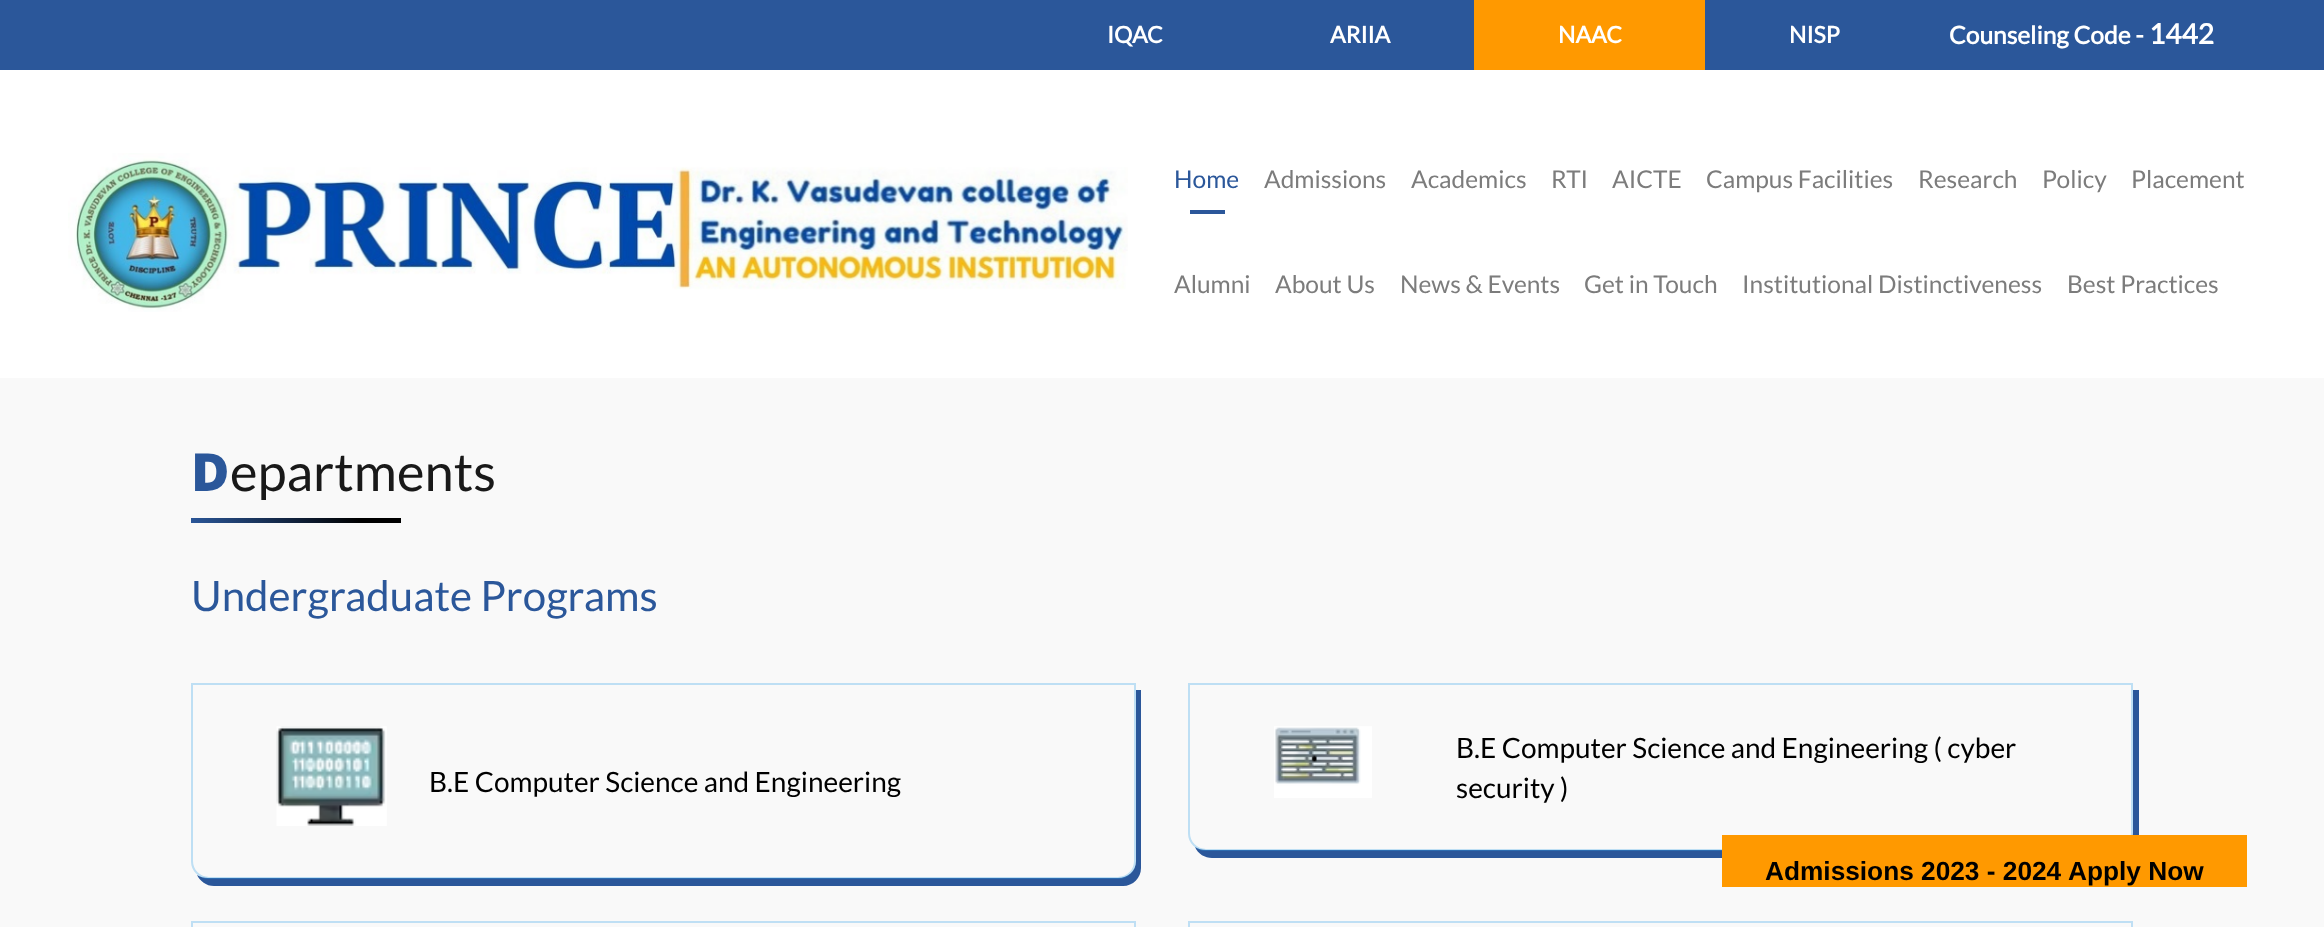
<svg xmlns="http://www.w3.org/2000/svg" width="2324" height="927">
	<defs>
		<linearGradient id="g1" gradientUnits="userSpaceOnUse" x1="242" y1="574" x2="350" y2="467"><stop offset="0" stop-color="#2B579A" /><stop offset="0.8" stop-color="#000000" /></linearGradient>
	</defs>
	<rect width="100%" height="100%" fill="#F9F9F9" />
	<rect x="0" y="70" width="2324" height="308" fill="#FFFFFF" />
	<rect x="0" y="0" width="2324" height="70" fill="#2B579A" />
	<g font-family="Lato" font-size="23" font-weight="700" fill="#FFFFFF">
		<text x="1107" y="43">IQAC</text>
		<text x="1330" y="43">ARIIA</text>
	</g>
	<rect x="1474" y="0" width="231" height="70" fill="#FF9900" />
	<g font-family="Lato" font-size="23" font-weight="700" fill="#FFFFFF">
		<text x="1558" y="43">NAAC</text>
		<text x="1789" y="43">NISP</text>
	</g>
	<text x="1949" y="44" font-family="Lato" font-size="24.5" font-weight="700" fill="#FFFFFF">Counseling Code -</text>
	<text x="2149" y="44" font-family="Lato" font-size="28" font-weight="700" fill="#FFFFFF">1442</text>
	<image x="68" y="153" width="1060" height="159" href="assets/img1.png" />
	<text x="1174" y="188" font-family="Lato" font-size="24.5" fill="#2B579A">Home</text>
	<rect x="1190" y="210" width="35" height="4" fill="#2B579A" />
	<g font-family="Lato" font-size="24.5" fill="#7C7C7C">
		<text x="1264" y="188">Admissions</text>
		<text x="1411" y="188">Academics</text>
		<text x="1551" y="188">RTI</text>
		<text x="1612" y="188">AICTE</text>
		<text x="1706" y="188">Campus Facilities</text>
		<text x="1918" y="188">Research</text>
		<text x="2042" y="188">Policy</text>
		<text x="2131" y="188">Placement</text>
		<text x="1174" y="293">Alumni</text>
		<text x="1275" y="293">About Us</text>
		<text x="1400" y="293">News &amp; Events</text>
		<text x="1584" y="293">Get in Touch</text>
		<text x="1742" y="293">Institutional Distinctiveness</text>
		<text x="2067" y="293">Best Practices</text>
	</g>
	<text x="191" y="491" font-family="Noto Sans" font-size="52.5" font-weight="900" fill="#2B579A">D</text>
	<text x="230" y="491" font-family="Lato" font-size="52.5" fill="#191919">epartments</text>
	<rect x="191" y="518" width="210" height="5" fill="url(#g1)" />
	<text x="191" y="611" font-family="Lato" font-size="42" fill="#2B579A">Undergraduate Programs</text>
	<path d="M197 875C200 881 206 886 214 886H1123C1133 886 1141 878 1141 868V690H1136V861C1136 871 1128 878 1118 878H208C204 878 200 877 197 875Z" fill="#2B579A" />
	<path d="M192 684H1135V861C1135 870.5 1127.5 878 1118 878H209C199.5 878 192 870.5 192 861Z" fill="none" stroke="#36A2E8" stroke-opacity="0.3" stroke-width="2" />
	<image x="276" y="726" width="111" height="100" href="assets/img2.png" />
	<text x="429" y="792" font-family="Lato" font-size="28" fill="#000000">B.E Computer Science and Engineering</text>
	<path d="M1195 847C1198 854 1205 858 1212 858H2121C2131 858 2139 850 2139 840V690H2133V833C2133 843 2125 850 2116 850H1206C1202 850 1198 849 1195 847Z" fill="#2B579A" />
	<path d="M1189 684H2132V833C2132 842.5 2124.5 850 2115 850H1206C1196.5 850 1189 842.5 1189 833Z" fill="none" stroke="#36A2E8" stroke-opacity="0.3" stroke-width="2" />
	<image x="1274" y="726" width="98" height="72" href="assets/img3.png" />
	<g font-family="Lato" font-size="28" fill="#000000">
		<text x="1456" y="758">B.E Computer Science and Engineering ( cyber</text>
		<text x="1456" y="798">security )</text>
	</g>
	<rect x="192" y="922" width="943" height="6" fill="none" stroke="#BFDFF4" stroke-width="2" />
	<rect x="1189" y="922" width="943" height="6" fill="none" stroke="#BFDFF4" stroke-width="2" />
	<rect x="1722" y="835" width="525" height="52" fill="#FF9900" />
	<g font-family="Liberation Sans" font-size="26.25" font-weight="700" fill="#000000">
		<text x="1765" y="880">Admissions 2023 - 2024</text>
		<text x="2068" y="880">Apply Now</text>
	</g>
</svg>
